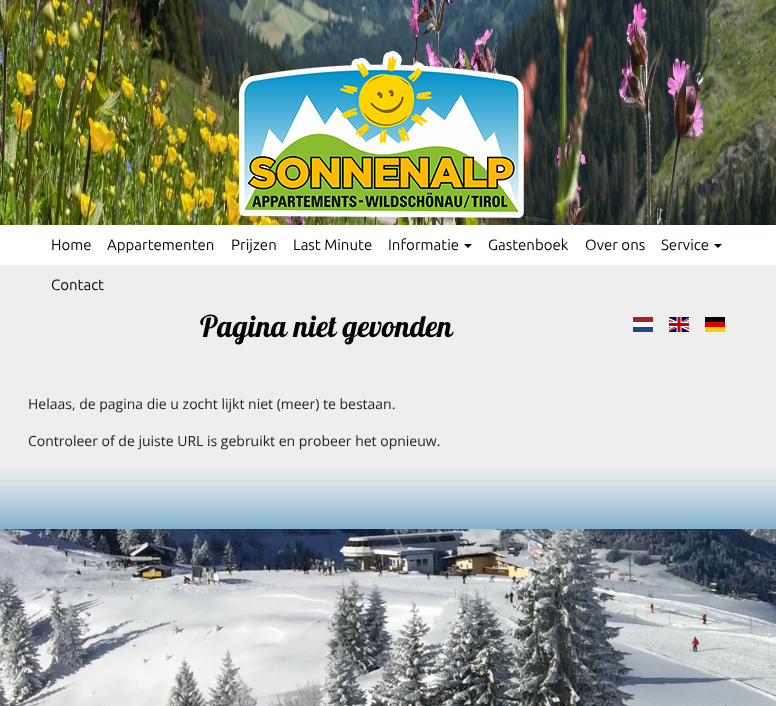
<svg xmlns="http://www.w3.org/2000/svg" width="776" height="706">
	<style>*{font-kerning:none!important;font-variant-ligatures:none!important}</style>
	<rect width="100%" height="100%" fill="#FFFFFF" />
	<image x="0" y="0" width="776" height="225" href="assets/img1.png" />
	<image x="239" y="51" width="285" height="167" href="assets/img2.png" />
	<g font-family="Ubuntu" font-size="15" fill="#000000">
		<text x="51" y="250">Home</text>
		<text x="107" y="250">Appartementen</text>
		<text x="231" y="250">Prijzen</text>
		<text x="293" y="250">Last Minute</text>
		<text x="388" y="250">Informatie</text>
	</g>
	<path d="M464 244H472L468 248Z" fill="#000000" />
	<g font-family="Ubuntu" font-size="15" fill="#000000">
		<text x="488" y="250">Gastenboek</text>
		<text x="585" y="250">Over ons</text>
		<text x="661" y="250">Service</text>
	</g>
	<path d="M714 244H722L718 248Z" fill="#000000" />
	<rect x="0" y="265" width="776" height="203" fill="#EFEEEE" />
	<text x="51" y="290" font-family="Ubuntu" font-size="15" fill="#000000">Contact</text>
	<rect x="633" y="322" width="20" height="5" fill="#FFFFFF" />
	<rect x="633" y="327" width="20" height="5" fill="#21468B" />
	<rect x="633" y="317" width="20" height="5" fill="#AE1C28" />
	<image x="669" y="317" width="20" height="15" href="assets/img3.png" />
	<rect x="705" y="327" width="20" height="5" fill="#FFCE00" />
	<rect x="705" y="317" width="20" height="5" fill="#000000" />
	<rect x="705" y="322" width="20" height="5" fill="#DD0000" />
	<image x="0" y="468" width="776" height="61" href="assets/img4.png" />
	<text x="200" y="337" font-family="Lobster" font-size="30" fill="#000000">Pagina niet gevonden</text>
	<g font-family="Open Sans" font-size="14" fill="#222222">
		<text x="28" y="409">Helaas, de pagina die u zocht lijkt niet (meer) te bestaan.</text>
		<text x="28" y="446">Controleer of de juiste URL is gebruikt en probeer het opnieuw.</text>
	</g>
	<image x="0" y="529" width="776" height="177" href="assets/img5.png" />
</svg>
